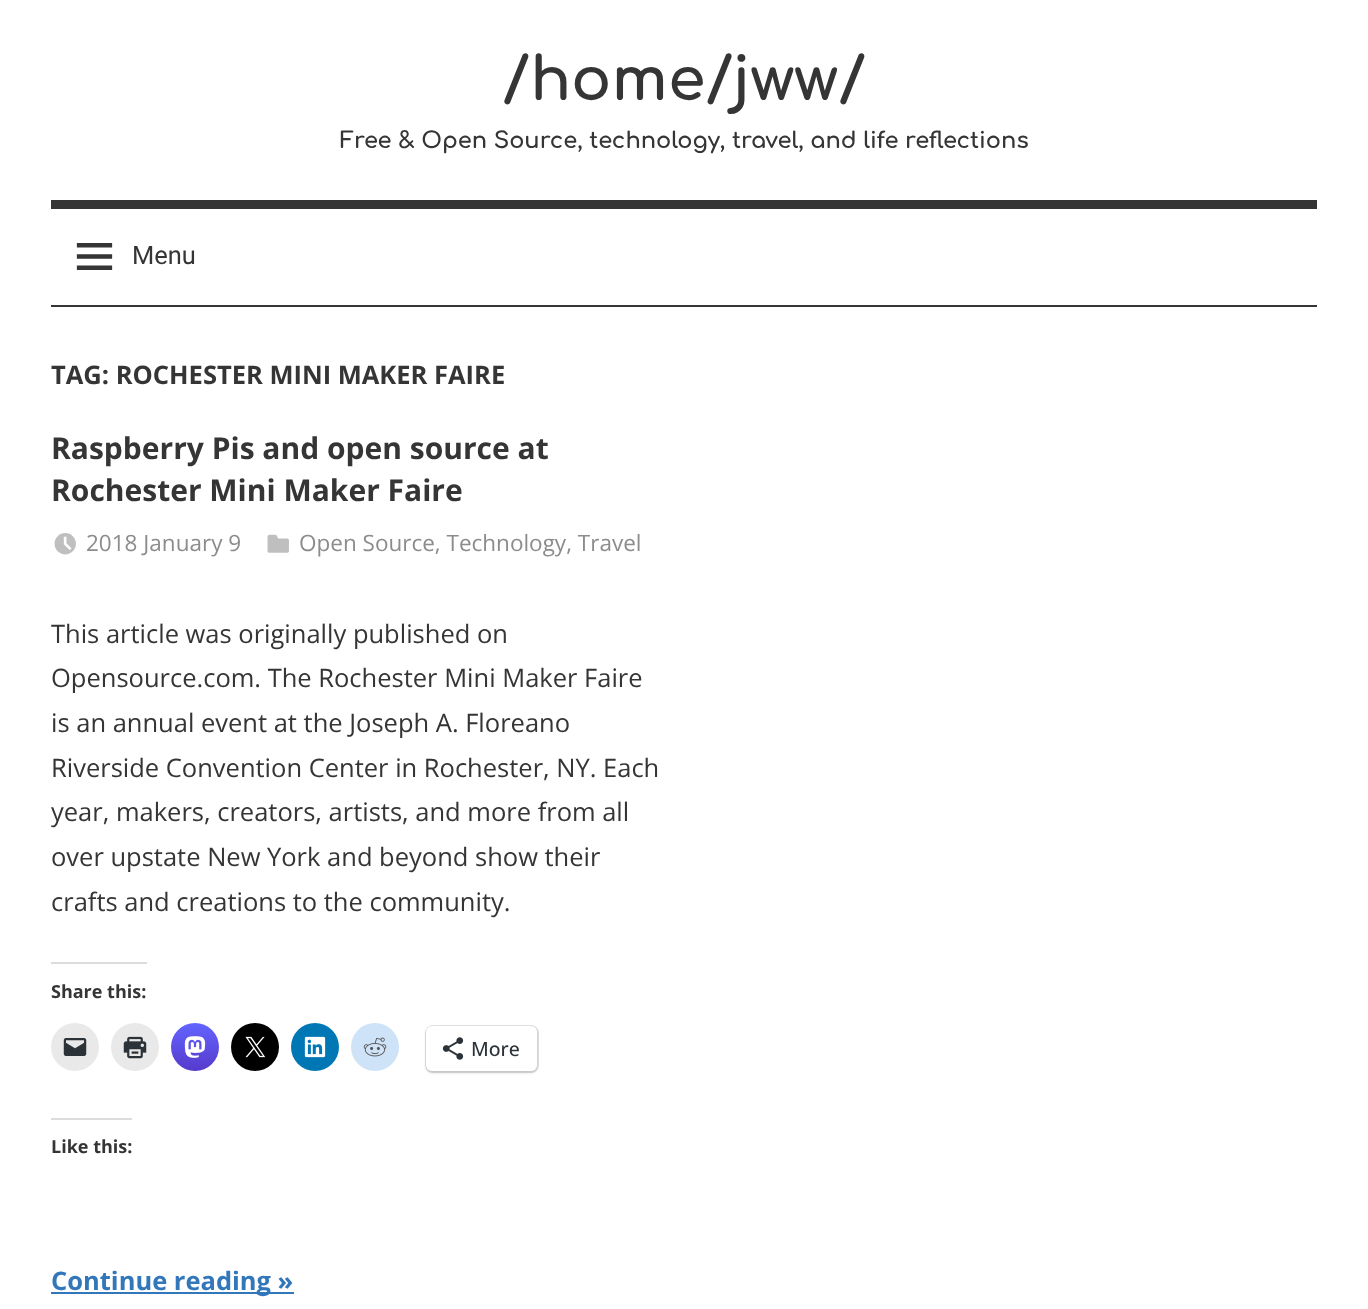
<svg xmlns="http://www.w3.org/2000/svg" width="1368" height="1309">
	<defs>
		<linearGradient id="g1" gradientUnits="userSpaceOnUse" x1="195" y1="1071" x2="195" y2="1023"><stop offset="0" stop-color="#563ACC" /><stop offset="1" stop-color="#6364FF" /></linearGradient>
	</defs>
	<rect width="100%" height="100%" fill="#FFFFFF" />
	<text x="502" y="100" font-family="Comfortaa" font-size="60" font-weight="700" fill="#353535">/home/jww/</text>
	<text x="340" y="148" font-family="Comfortaa" font-size="22.5" font-weight="700" fill="#353535">Free &amp; Open Source, technology, travel, and life reflections</text>
	<rect x="51" y="200" width="1266" height="9" fill="#353535" />
	<rect x="51" y="305" width="1266" height="2" fill="#353535" />
	<image x="76" y="243" width="37" height="27" href="assets/img1.png" />
	<text x="132" y="264" font-family="Roboto" font-size="25.5" fill="#353535">Menu</text>
	<text x="51" y="384" font-family="Open Sans" font-size="25.5" font-weight="700" fill="#353535">TAG: ROCHESTER MINI MAKER FAIRE</text>
	<g font-family="Open Sans" font-size="30" font-weight="700" fill="#353535">
		<text x="51" y="459">Raspberry Pis and open source at</text>
		<text x="51" y="501">Rochester Mini Maker Faire</text>
	</g>
	<image x="54" y="533" width="22" height="22" href="assets/img2.png" />
	<text x="86" y="551" font-family="Open Sans" font-size="22.5" fill="#8C8C8C">2018 January 9</text>
	<image x="267" y="534" width="22" height="19" href="assets/img3.png" />
	<text x="299" y="551" font-family="Open Sans" font-size="22.5" fill="#8C8C8C">Open Source, Technology, Travel</text>
	<g font-family="Open Sans" font-size="25.5" fill="#353535">
		<text x="51" y="643">This article was originally published on</text>
		<text x="51" y="687">Opensource.com. The Rochester Mini Maker Faire</text>
		<text x="51" y="732">is an annual event at the Joseph A. Floreano</text>
		<text x="51" y="777">Riverside Convention Center in Rochester, NY. Each</text>
		<text x="51" y="821">year, makers, creators, artists, and more from all</text>
		<text x="51" y="866">over upstate New York and beyond show their</text>
		<text x="51" y="911">crafts and creations to the community.</text>
	</g>
	<rect x="51" y="962" width="96" height="2" fill="#DCDCDE" />
	<text x="51" y="998" font-family="Open Sans" font-size="18" font-weight="700" fill="#353535">Share this:</text>
	<circle cx="75" cy="1047" r="24" fill="#E9E9E9" />
	<image x="63" y="1038" width="24" height="18" href="assets/img4.png" />
	<circle cx="135" cy="1047" r="24" fill="#E9E9E9" />
	<image x="123" y="1036" width="24" height="23" href="assets/img5.png" />
	<circle cx="195" cy="1047" r="24" fill="url(#g1)" />
	<image x="184" y="1036" width="22" height="22" href="assets/img6.png" />
	<circle cx="255" cy="1047" r="24" fill="#000000" />
	<image x="245" y="1036" width="21" height="22" href="assets/img7.png" />
	<circle cx="315" cy="1047" r="24" fill="#0077B5" />
	<image x="304" y="1036" width="22" height="22" href="assets/img8.png" />
	<circle cx="375" cy="1047" r="24" fill="#CEE3F8" />
	<image x="363" y="1037" width="24" height="20" href="assets/img9.png" />
	<rect x="426" y="1026" width="112" height="46" rx="7" fill="none" stroke="#E0E0E0" stroke-width="2" />
	<rect x="426" y="1028" width="111" height="45" rx="6" fill="#000000" fill-opacity="0.12" filter="blur(1.5px)" />
	<rect x="426" y="1026" width="111" height="45" rx="6" fill="#FFFFFF" />
	<image x="442" y="1037" width="22" height="23" href="assets/img10.png" />
	<text x="471" y="1056" font-family="Open Sans" font-size="19.5" font-weight="500" fill="#2C3338">More</text>
	<rect x="51" y="1118" width="81" height="2" fill="#DCDCDE" />
	<text x="51" y="1153" font-family="Open Sans" font-size="18" font-weight="700" fill="#353535">Like this:</text>
	<rect x="51" y="1292" width="243" height="2" fill="#3377BB" />
	<text x="51" y="1290" font-family="Open Sans" font-size="25.5" font-weight="700" fill="#3377BB">Continue reading »</text>
</svg>
